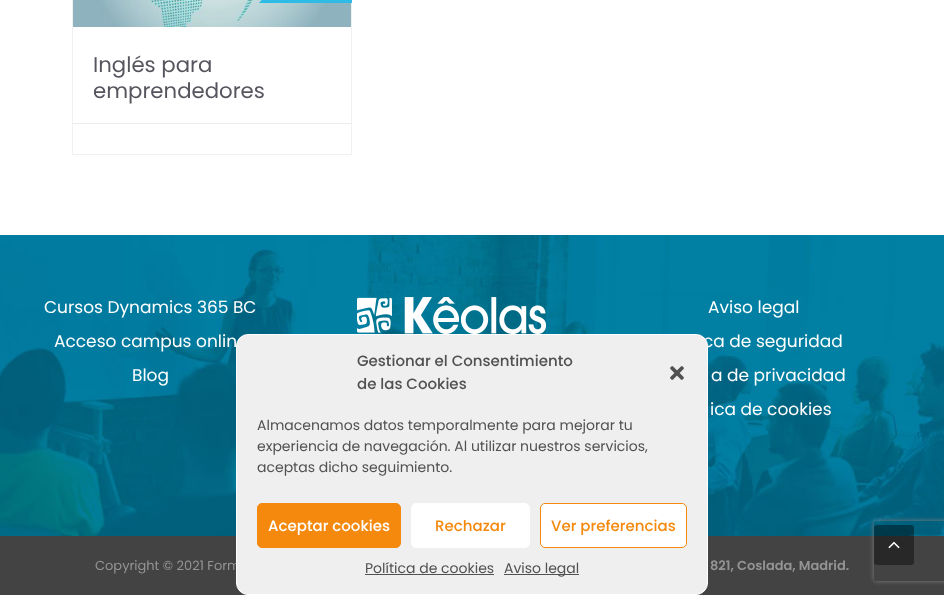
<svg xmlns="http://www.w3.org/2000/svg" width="944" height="595">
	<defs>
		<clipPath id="clip1"><path d="M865 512H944V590H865ZM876 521H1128C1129 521 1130 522 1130 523V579C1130 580 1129 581 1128 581H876C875 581 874 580 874 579V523C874 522 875 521 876 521Z" clip-rule="evenodd" /></clipPath>
	</defs>
	<rect width="100%" height="100%" fill="#FFFFFF" />
	<rect x="72.5" y="-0.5" width="279" height="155" fill="none" stroke="#F0F0F0" />
	<image x="73" y="0" width="278" height="27" href="assets/img1.png" />
	<path d="M259-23L271-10L259 3H352V-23Z" fill="#2EBCE6" />
	<g font-family="Poppins" font-size="21.25" fill="#55555E">
		<text x="93" y="72">Inglés para</text>
		<text x="93" y="98">emprendedores</text>
	</g>
	<rect x="73" y="123" width="278" height="1" fill="#EBEBEB" />
	<image x="0" y="235" width="944" height="301" href="assets/img2.png" />
	<g font-family="Poppins" font-size="17" fill="#FFFFFF">
		<text x="44" y="313">Cursos Dynamics 365 BC</text>
		<text x="54" y="347">Acceso campus onlin</text>
		<text x="132" y="381">Blog</text>
	</g>
	<image x="357" y="297" width="189" height="37" href="assets/img3.png" />
	<g font-family="Poppins" font-size="17" fill="#FFFFFF">
		<text x="708" y="313">Aviso legal</text>
		<text x="703" y="347">ca de seguridad</text>
		<text x="711" y="381">a de privacidad</text>
		<text x="710" y="415">ica de cookies</text>
	</g>
	<rect x="0" y="536" width="944" height="59" fill="#434343" />
	<text x="95" y="570" font-family="Poppins" font-size="13" fill="#949494">Copyright © 2021 Form</text>
	<text x="710" y="570" font-family="Poppins" font-size="13" font-weight="600" fill="#949494">821, Coslada, Madrid.</text>
	<rect x="236.5" y="334.5" width="471" height="260" rx="11.5" fill="#EFEFEF" stroke="#FFFFFF" />
	<g font-family="Poppins" font-size="15" font-weight="500" fill="#515151">
		<text x="357" y="366">Gestionar el Consentimiento</text>
		<text x="357" y="389">de las Cookies</text>
	</g>
	<image x="670" y="366" width="14" height="14" href="assets/img4.png" />
	<g font-family="Poppins" font-size="14" fill="#515151">
		<text x="257" y="430">Almacenamos datos temporalmente para mejorar tu</text>
		<text x="257" y="451">experiencia de navegación. Al utilizar nuestros servicios,</text>
		<text x="257" y="472">aceptas dicho seguimiento.</text>
	</g>
	<rect x="257.5" y="503.5" width="143" height="44" rx="4.5" fill="#F4890E" stroke="#F4890E" />
	<text x="268" y="531" font-family="Poppins" font-size="15" font-weight="500" fill="#FFFFFF">Aceptar cookies</text>
	<rect x="411.5" y="503.5" width="118" height="44" rx="4.5" fill="#FFFFFF" stroke="#FFFFFF" />
	<text x="435" y="531" font-family="Poppins" font-size="15" font-weight="500" fill="#F4890E">Rechazar</text>
	<rect x="540.5" y="503.5" width="146" height="44" rx="4.5" fill="#FFFFFF" stroke="#F4890E" />
	<text x="551" y="531" font-family="Poppins" font-size="15" font-weight="500" fill="#F4890E">Ver preferencias</text>
	<text x="365" y="573" font-family="Poppins" font-size="14" fill="#515151">Política de cookies</text>
	<rect x="365" y="574" width="129" height="1" fill="#515151" />
	<rect x="504" y="574" width="75" height="1" fill="#515151" />
	<text x="504" y="573" font-family="Poppins" font-size="14" fill="#515151">Aviso legal</text>
	<g clip-path="url(#clip1)">
		<rect x="874" y="521" width="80" height="60" rx="2" fill="#808080" filter="blur(2.5px)" />
	</g>
	<rect x="874" y="525" width="40" height="40" rx="3" fill="#000000" fill-opacity="0.4" />
	<image x="888" y="541" width="12" height="8" href="assets/img5.png" />
</svg>
